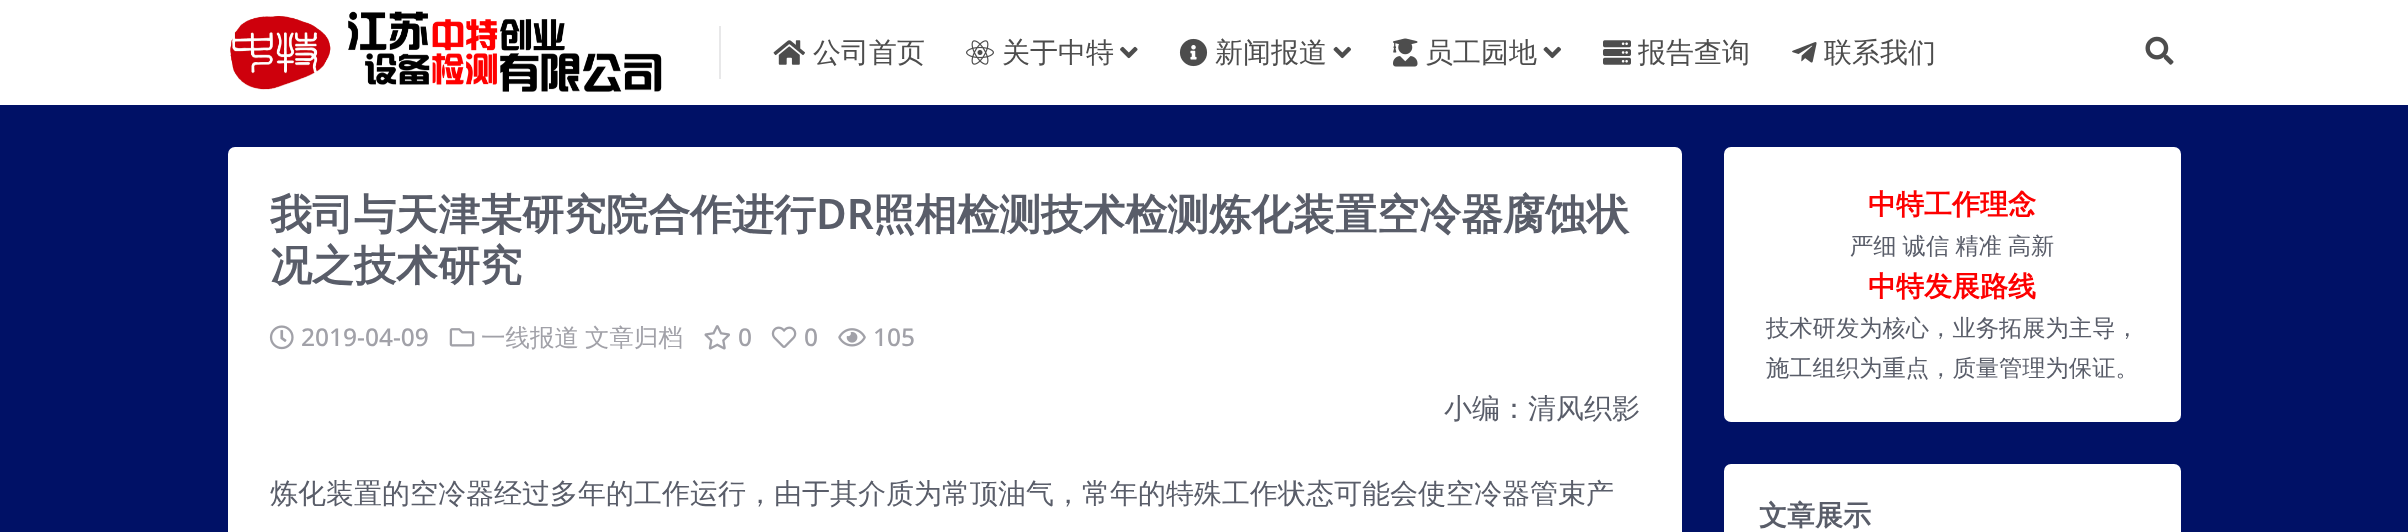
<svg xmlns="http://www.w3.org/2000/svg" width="2408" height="532">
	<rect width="100%" height="100%" fill="#001166" />
	<rect x="0" y="0" width="2408" height="105" fill="#FFFFFF" />
	<image x="230" y="11" width="432" height="81" href="assets/img1.png" />
	<rect x="719" y="26" width="2" height="53" fill="#E8E8E9" />
	<image x="773" y="40" width="32" height="25" href="assets/img2.png" />
	<text x="813" y="62" font-family="WenQuanYi Zen Hei" font-size="28" font-weight="500" fill="#4D4D4D">公司首页</text>
	<image x="966" y="40" width="28" height="25" href="assets/img3.png" />
	<text x="1002" y="62" font-family="WenQuanYi Zen Hei" font-size="28" font-weight="500" fill="#4D4D4D">关于中特</text>
	<image x="1120" y="46" width="18" height="13" href="assets/img4.png" />
	<image x="1179" y="38" width="29" height="29" href="assets/img5.png" />
	<text x="1215" y="62" font-family="WenQuanYi Zen Hei" font-size="28" font-weight="500" fill="#4D4D4D">新闻报道</text>
	<image x="1333" y="46" width="18" height="13" href="assets/img6.png" />
	<image x="1393" y="38" width="25" height="29" href="assets/img7.png" />
	<text x="1425" y="62" font-family="WenQuanYi Zen Hei" font-size="28" font-weight="500" fill="#4D4D4D">员工园地</text>
	<image x="1543" y="46" width="18" height="13" href="assets/img6.png" />
	<image x="1603" y="40" width="28" height="25" href="assets/img8.png" />
	<text x="1638" y="62" font-family="WenQuanYi Zen Hei" font-size="28" font-weight="500" fill="#4D4D4D">报告查询</text>
	<image x="1792" y="42" width="25" height="21" href="assets/img9.png" />
	<text x="1824" y="62" font-family="WenQuanYi Zen Hei" font-size="28" font-weight="500" fill="#4D4D4D">联系我们</text>
	<image x="2145" y="36" width="29" height="29" href="assets/img10.png" />
	<rect x="228" y="147" width="1454" height="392" rx="7" fill="#FFFFFF" />
	<text x="270" y="229" font-family="WenQuanYi Zen Hei" font-size="42" font-weight="700" fill="#595D69">我司与天津某研究院合作进行</text>
	<text x="816" y="229" font-family="Noto Sans" font-size="42" font-weight="600" fill="#595D69">DR</text>
	<g font-family="WenQuanYi Zen Hei" font-size="42" font-weight="700" fill="#595D69">
		<text x="873" y="229">照相检测技术检测炼化装置空冷器腐蚀状</text>
		<text x="270" y="280">况之技术研究</text>
	</g>
	<image x="269" y="325" width="25" height="25" href="assets/img11.png" />
	<text x="301" y="346" font-family="Noto Sans" font-size="24.5" font-weight="500" fill="#A1A1A8">2019-04-09</text>
	<image x="449" y="328" width="26" height="19" href="assets/img12.png" />
	<g font-family="WenQuanYi Zen Hei" font-size="24.5" font-weight="500" fill="#A1A1A8">
		<text x="481" y="346">一线报道</text>
		<text x="585" y="346">文章归档</text>
	</g>
	<image x="704" y="325" width="26" height="25" href="assets/img13.png" />
	<text x="738" y="346" font-family="Noto Sans" font-size="24.5" font-weight="500" fill="#A1A1A8">0</text>
	<image x="771" y="326" width="26" height="22" href="assets/img14.png" />
	<text x="804" y="346" font-family="Noto Sans" font-size="24.5" font-weight="500" fill="#A1A1A8">0</text>
	<image x="838" y="328" width="28" height="19" href="assets/img15.png" />
	<text x="873" y="346" font-family="Noto Sans" font-size="24.5" font-weight="500" fill="#A1A1A8">105</text>
	<g font-family="WenQuanYi Zen Hei" font-size="28" font-weight="500" fill="#595D69">
		<text x="1444" y="418">小编：清风织影</text>
		<text x="270" y="503">炼化装置的空冷器经过多年的工作运行，由于其介质为常顶油气，常年的特殊工作状态可能会使空冷器管束产</text>
	</g>
	<rect x="1724" y="147" width="457" height="275" rx="7" fill="#FFFFFF" />
	<text x="1868" y="214" font-family="WenQuanYi Zen Hei" font-size="28" font-weight="700" fill="#FD0000">中特工作理念</text>
	<text x="1850" y="254" word-spacing="-1" font-family="WenQuanYi Zen Hei" font-size="23.3" font-weight="500" fill="#595D69">严细 诚信 精准 高新</text>
	<text x="1868" y="296" font-family="WenQuanYi Zen Hei" font-size="28" font-weight="700" fill="#FD0000">中特发展路线</text>
	<g font-family="WenQuanYi Zen Hei" font-size="23.3" font-weight="500" fill="#595D69">
		<text x="1766" y="336">技术研发为核心，业务拓展为主导，</text>
		<text x="1766" y="376">施工组织为重点，质量管理为保证。</text>
	</g>
	<rect x="1724" y="464" width="457" height="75" rx="7" fill="#FFFFFF" />
	<text x="1759" y="525" font-family="WenQuanYi Zen Hei" font-size="28" font-weight="700" fill="#595D69">文章展示</text>
</svg>
